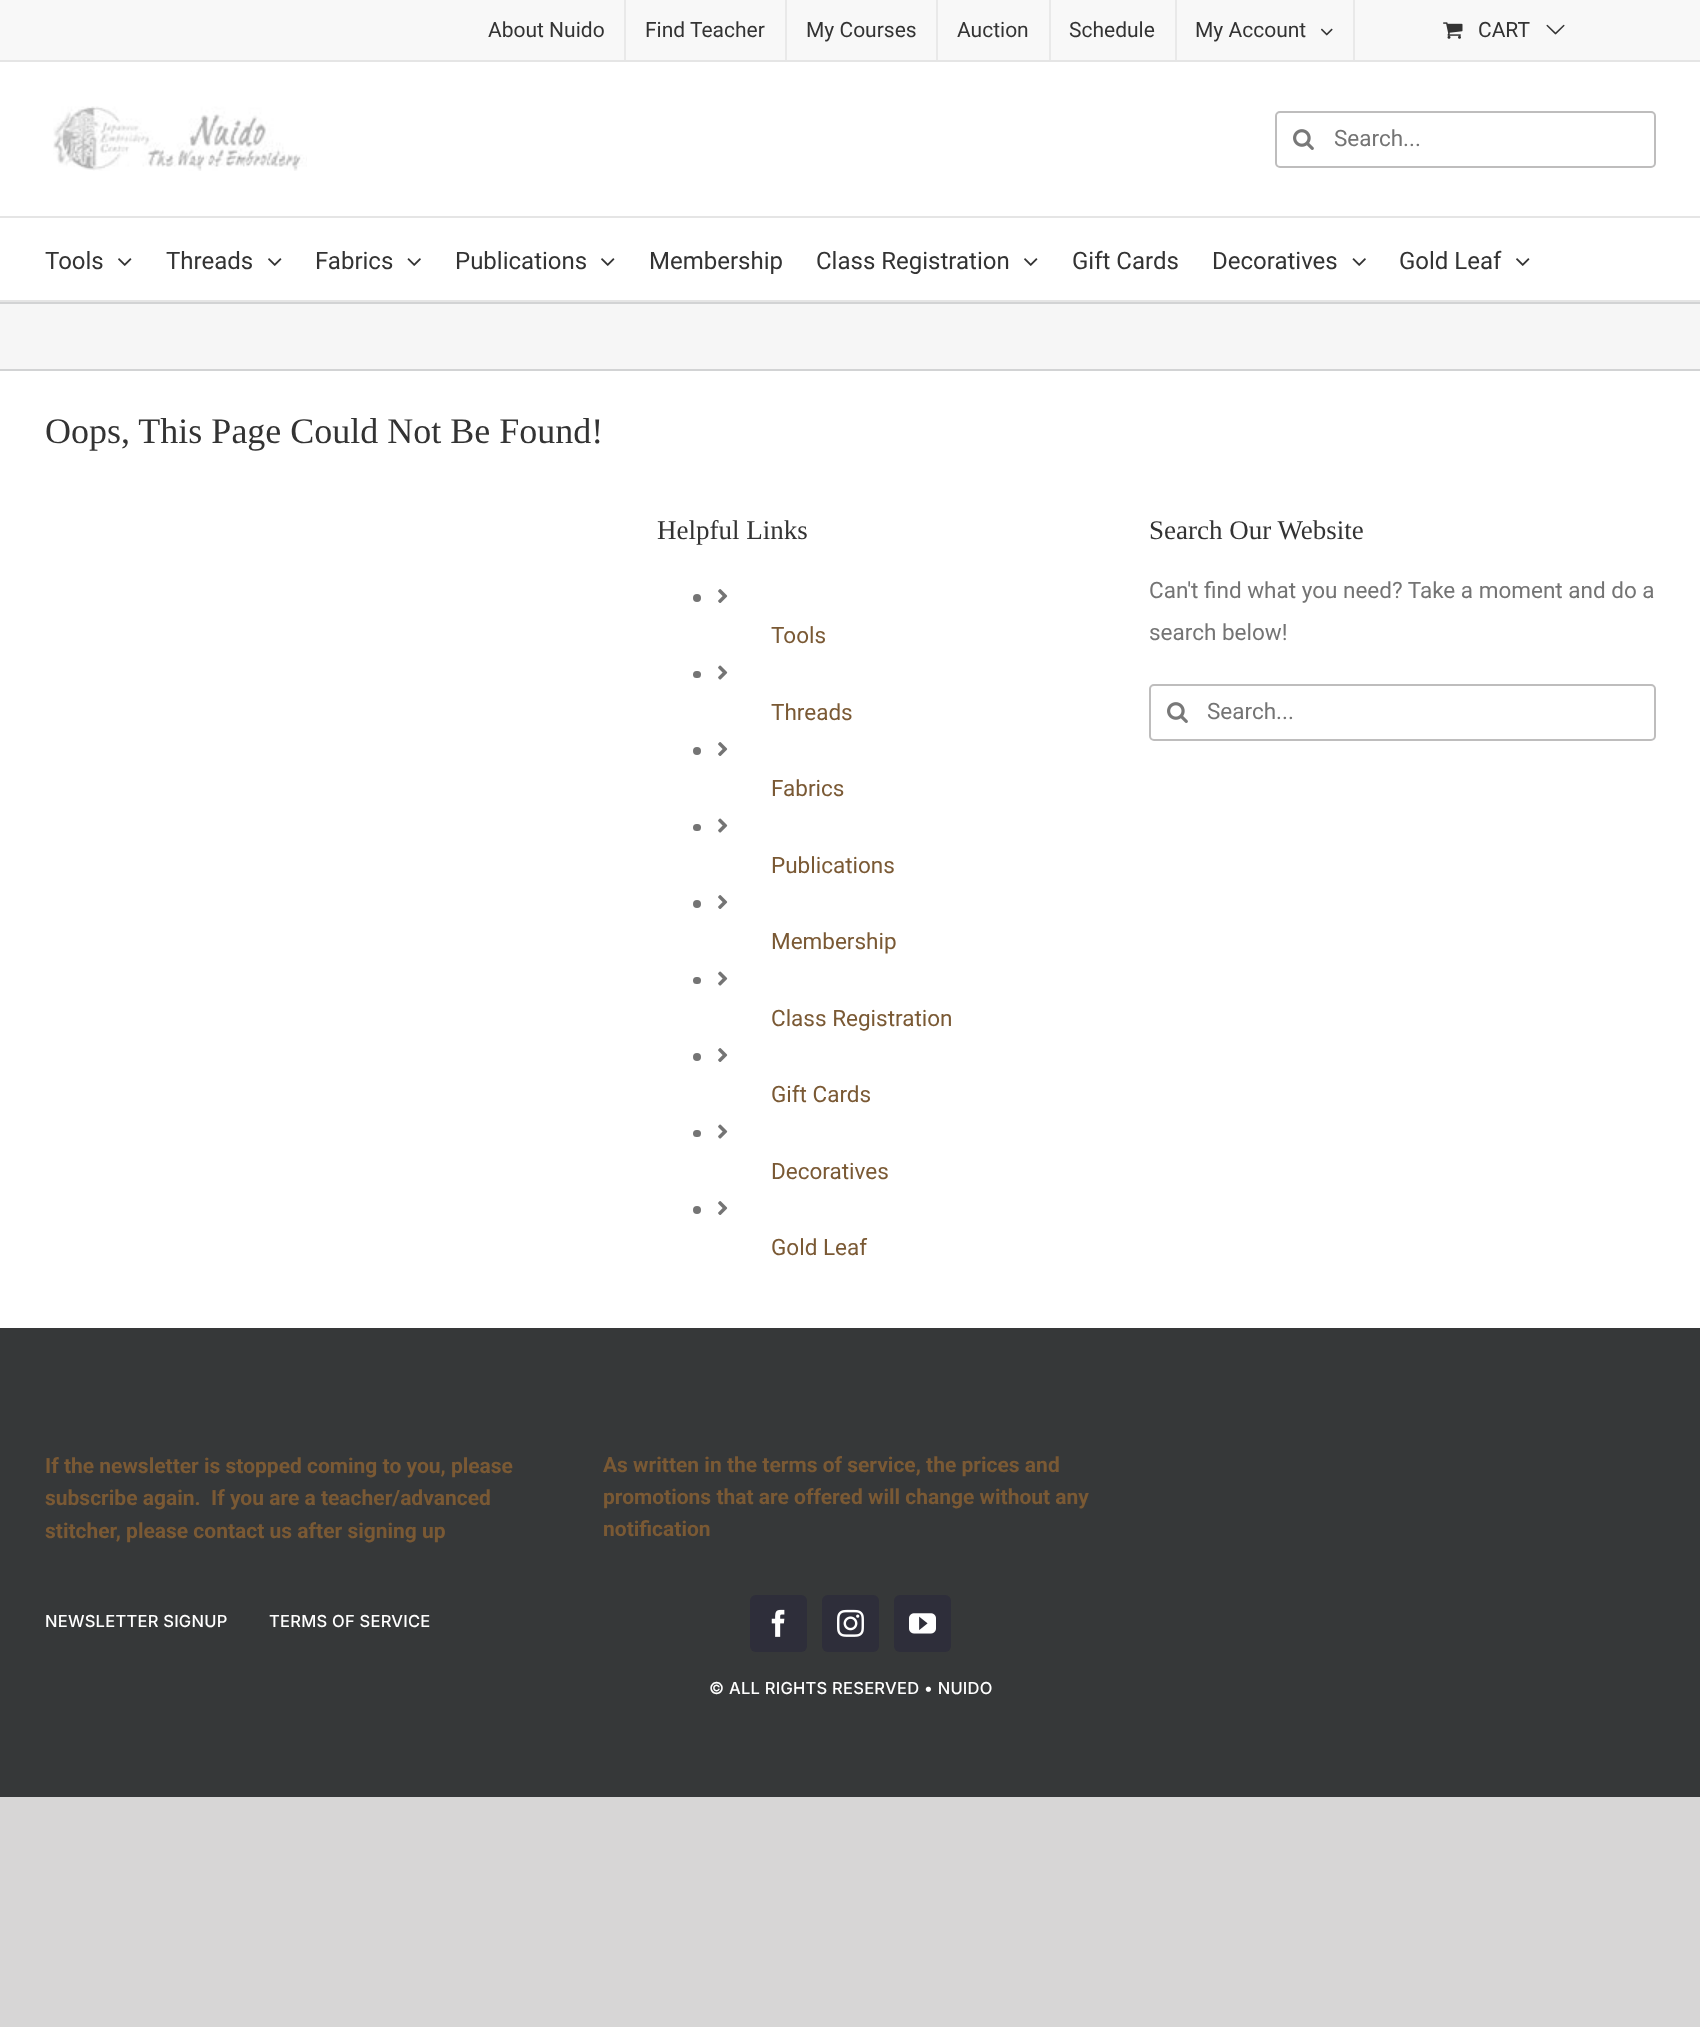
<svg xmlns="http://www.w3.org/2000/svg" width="1700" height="2027">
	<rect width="100%" height="100%" fill="#D7D6D6" />
	<rect x="0" y="62" width="1700" height="1266" fill="#FFFFFF" />
	<rect x="0" y="0" width="1700" height="60" fill="#F8F8F8" />
	<rect x="0" y="60" width="1700" height="2" fill="#E5E5E5" />
	<text x="488" y="37" font-family="Roboto" font-size="21" fill="#333333">About Nuido</text>
	<rect x="624" y="0" width="2" height="60" fill="#E9E9E9" />
	<text x="645" y="37" font-family="Roboto" font-size="21" fill="#333333">Find Teacher</text>
	<rect x="785" y="0" width="2" height="60" fill="#E9E9E9" />
	<text x="806" y="37" font-family="Roboto" font-size="21" fill="#333333">My Courses</text>
	<rect x="936" y="0" width="2" height="60" fill="#E9E9E9" />
	<text x="957" y="37" font-family="Roboto" font-size="21" fill="#333333">Auction</text>
	<rect x="1049" y="0" width="2" height="60" fill="#E9E9E9" />
	<text x="1069" y="37" font-family="Roboto" font-size="21" fill="#333333">Schedule</text>
	<rect x="1175" y="0" width="2" height="60" fill="#E9E9E9" />
	<text x="1195" y="37" font-family="Roboto" font-size="21" fill="#333333">My Account</text>
	<image x="1321" y="28" width="12" height="8" href="assets/img1.png" />
	<rect x="1353" y="0" width="2" height="60" fill="#E9E9E9" />
	<image x="1443" y="22" width="20" height="17" href="assets/img2.png" />
	<text x="1478" y="37" font-family="Roboto" font-size="21" fill="#333333">CART</text>
	<image x="1546" y="24" width="19" height="11" href="assets/img3.png" />
	<rect x="0" y="216" width="1700" height="2" fill="#E5E5E5" />
	<image x="53" y="106" width="254" height="65" href="assets/img4.png" />
	<rect x="1276" y="112" width="379" height="55" rx="4" fill="none" stroke="#BEBDBD" stroke-width="2" />
	<image x="1293" y="129" width="21" height="21" href="assets/img5.png" />
	<text x="1334" y="146" font-family="Roboto" font-size="22.5" fill="#747474">Search...</text>
	<rect x="0" y="300" width="1700" height="2" fill="#E5E5E5" />
	<text x="45" y="269" font-family="Roboto" font-size="24" fill="#333333">Tools</text>
	<image x="118" y="258" width="14" height="8" href="assets/img6.png" />
	<text x="166" y="269" font-family="Roboto" font-size="24" fill="#333333">Threads</text>
	<image x="268" y="258" width="14" height="8" href="assets/img6.png" />
	<text x="315" y="269" font-family="Roboto" font-size="24" fill="#333333">Fabrics</text>
	<image x="407" y="258" width="14" height="8" href="assets/img7.png" />
	<text x="455" y="269" font-family="Roboto" font-size="24" fill="#333333">Publications</text>
	<image x="601" y="258" width="14" height="8" href="assets/img6.png" />
	<g font-family="Roboto" font-size="24" fill="#333333">
		<text x="649" y="269">Membership</text>
		<text x="816" y="269">Class Registration</text>
	</g>
	<image x="1024" y="258" width="14" height="8" href="assets/img6.png" />
	<g font-family="Roboto" font-size="24" fill="#333333">
		<text x="1072" y="269">Gift Cards</text>
		<text x="1212" y="269">Decoratives</text>
	</g>
	<image x="1352" y="258" width="14" height="8" href="assets/img7.png" />
	<text x="1399" y="269" font-family="Roboto" font-size="24" fill="#333333">Gold Leaf</text>
	<image x="1516" y="258" width="14" height="8" href="assets/img6.png" />
	<rect x="0" y="304" width="1700" height="65" fill="#F6F6F6" />
	<rect x="0" y="302" width="1700" height="2" fill="#D2D3D4" />
	<rect x="0" y="369" width="1700" height="2" fill="#D2D3D4" />
	<text x="45" y="443" font-family="Liberation Serif" font-size="36" fill="#333333">Oops, This Page Could Not Be Found!</text>
	<text x="657" y="539" font-family="Liberation Serif" font-size="27" fill="#333333">Helpful Links</text>
	<circle cx="697" cy="598" r="4" fill="#747474" />
	<image x="718" y="589" width="10" height="14" href="assets/img8.png" />
	<text x="771" y="643" font-family="Roboto" font-size="22.5" fill="#7A5934">Tools</text>
	<rect x="693" y="671" width="8" height="7" rx="3.5" fill="#747474" />
	<image x="718" y="665" width="10" height="15" href="assets/img9.png" />
	<text x="771" y="720" font-family="Roboto" font-size="22.5" fill="#7A5934">Threads</text>
	<circle cx="697" cy="751" r="4" fill="#747474" />
	<image x="718" y="742" width="10" height="14" href="assets/img8.png" />
	<text x="771" y="796" font-family="Roboto" font-size="22.5" fill="#7A5934">Fabrics</text>
	<rect x="693" y="824" width="8" height="7" rx="3.5" fill="#747474" />
	<image x="718" y="818" width="10" height="15" href="assets/img9.png" />
	<text x="771" y="873" font-family="Roboto" font-size="22.5" fill="#7A5934">Publications</text>
	<circle cx="697" cy="904" r="4" fill="#747474" />
	<image x="718" y="895" width="10" height="14" href="assets/img8.png" />
	<text x="771" y="949" font-family="Roboto" font-size="22.5" fill="#7A5934">Membership</text>
	<rect x="693" y="977" width="8" height="7" rx="3.5" fill="#747474" />
	<image x="718" y="971" width="10" height="15" href="assets/img9.png" />
	<text x="771" y="1026" font-family="Roboto" font-size="22.5" fill="#7A5934">Class Registration</text>
	<circle cx="697" cy="1057" r="4" fill="#747474" />
	<image x="718" y="1048" width="10" height="14" href="assets/img8.png" />
	<text x="771" y="1102" font-family="Roboto" font-size="22.5" fill="#7A5934">Gift Cards</text>
	<rect x="693" y="1130" width="8" height="7" rx="3.5" fill="#747474" />
	<image x="718" y="1124" width="10" height="15" href="assets/img9.png" />
	<text x="771" y="1179" font-family="Roboto" font-size="22.5" fill="#7A5934">Decoratives</text>
	<circle cx="697" cy="1210" r="4" fill="#747474" />
	<image x="718" y="1201" width="10" height="14" href="assets/img8.png" />
	<text x="771" y="1255" font-family="Roboto" font-size="22.5" fill="#7A5934">Gold Leaf</text>
	<text x="1149" y="539" font-family="Liberation Serif" font-size="27" fill="#333333">Search Our Website</text>
	<g font-family="Roboto" font-size="22.5" fill="#747474">
		<text x="1149" y="598">Can't find what you need? Take a moment and do a</text>
		<text x="1149" y="640">search below!</text>
	</g>
	<rect x="1150" y="685" width="505" height="55" rx="4" fill="none" stroke="#BEBDBD" stroke-width="2" />
	<image x="1167" y="702" width="21" height="21" href="assets/img5.png" />
	<text x="1207" y="719" font-family="Roboto" font-size="22.5" fill="#747474">Search...</text>
	<rect x="0" y="1328" width="1700" height="469" fill="#363839" />
	<g font-family="Roboto" font-size="21" font-weight="700" fill="#7A5934">
		<text x="45" y="1473">If the newsletter is stopped coming to you, please</text>
		<text x="45" y="1505" xml:space="preserve">subscribe again.  If you are a teacher/advanced</text>
		<text x="45" y="1538">stitcher, please contact us after signing up</text>
	</g>
	<g font-family="Inter" font-size="16.5" font-weight="500" letter-spacing="0.25" fill="#FFFFFF">
		<text x="45" y="1627">NEWSLETTER SIGNUP</text>
		<text x="269" y="1627">TERMS OF SERVICE</text>
	</g>
	<g font-family="Roboto" font-size="21" font-weight="700" fill="#7A5934">
		<text x="603" y="1472">As written in the terms of service, the prices and</text>
		<text x="603" y="1504">promotions that are offered will change without any</text>
		<text x="603" y="1536">notification</text>
	</g>
	<rect x="750" y="1595" width="57" height="57" rx="6" fill="#2E2E3A" />
	<image x="771" y="1609" width="14" height="28" href="assets/img10.png" />
	<rect x="822" y="1595" width="57" height="57" rx="6" fill="#2E2E3A" />
	<image x="837" y="1609" width="27" height="28" href="assets/img11.png" />
	<rect x="894" y="1595" width="57" height="57" rx="6" fill="#2E2E3A" />
	<image x="909" y="1613" width="27" height="21" href="assets/img12.png" />
	<text x="709" y="1694" font-family="Inter" font-size="16.5" font-weight="500" letter-spacing="0.25" fill="#FFFFFF">© ALL RIGHTS RESERVED • NUIDO</text>
</svg>
